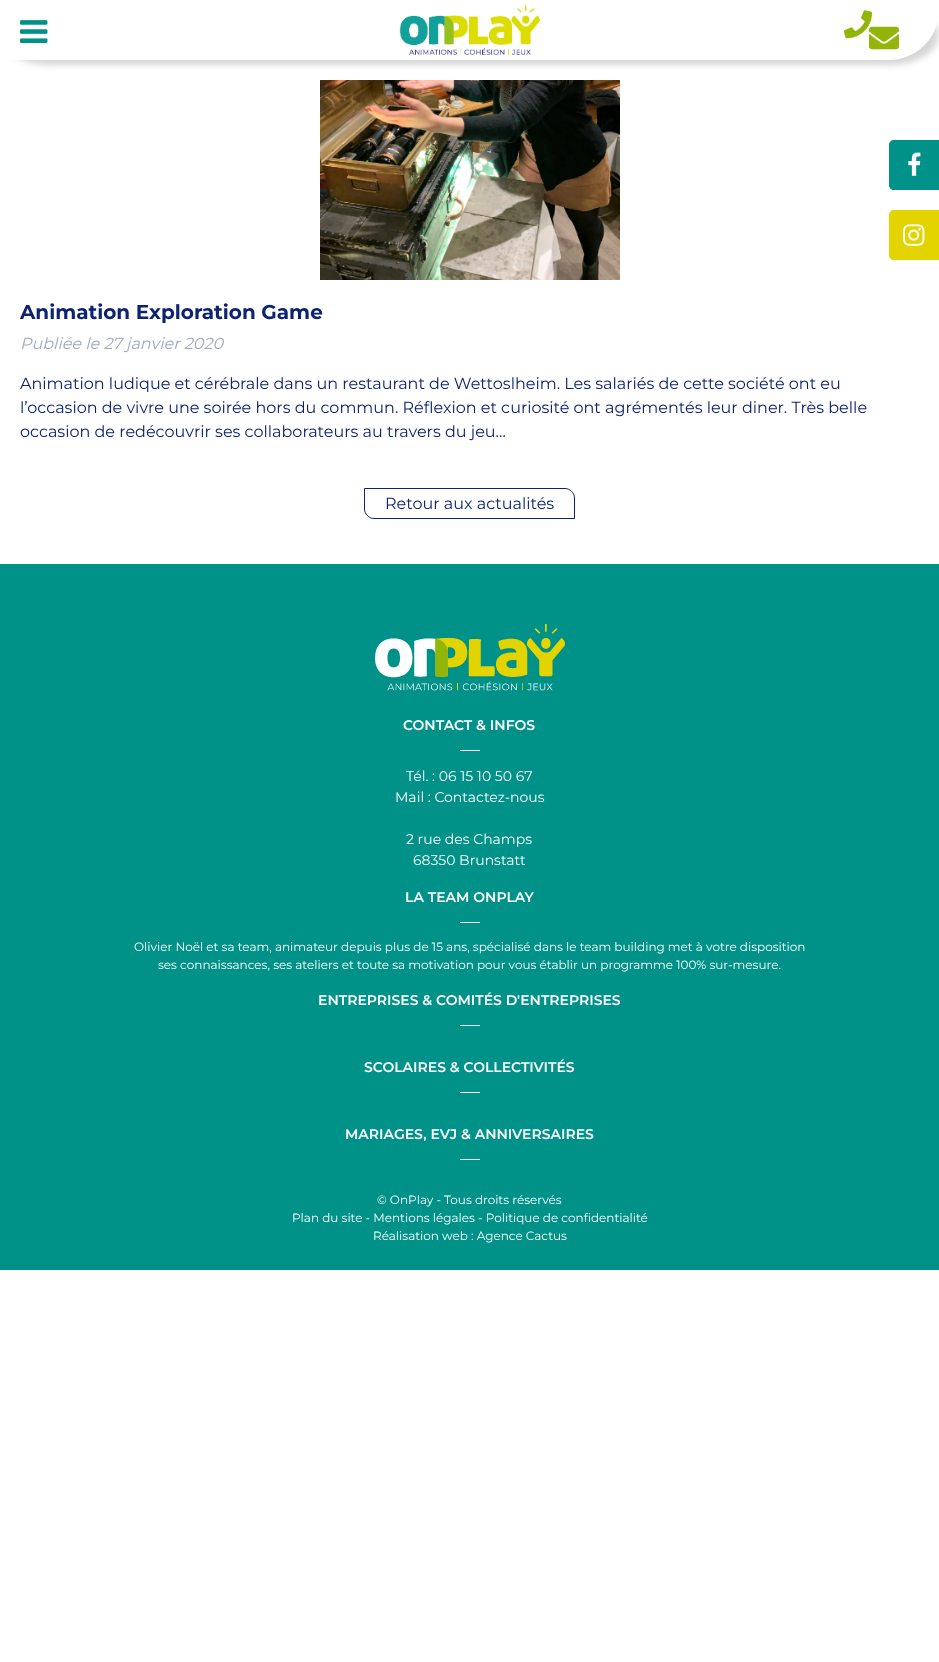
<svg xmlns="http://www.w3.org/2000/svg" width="939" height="1662">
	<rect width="100%" height="100%" fill="#FFFFFF" />
	<rect x="0" y="5" width="939" height="60" rx="50" fill="#000000" fill-opacity="0.16" filter="blur(3px)" />
	<path d="M0 0H939V10C939 37.5 916.5 60 889 60H0Z" fill="#FFFFFF" />
	<image x="399" y="5" width="141" height="50" href="assets/img1.png" />
	<image x="844" y="10" width="55" height="40" href="assets/img2.png" />
	<image x="20" y="20" width="28" height="23" href="assets/img3.png" />
	<path d="M894 140H939V190H894C891 190 889 188 889 185V145C889 142 891 140 894 140Z" fill="#009289" />
	<image x="908" y="152" width="13" height="24" href="assets/img4.png" />
	<path d="M894 210H939V260H894C891 260 889 258 889 255V215C889 212 891 210 894 210Z" fill="#E3D400" />
	<image x="903" y="224" width="22" height="22" href="assets/img5.png" />
	<image x="320" y="80" width="300" height="200" href="assets/img6.png" />
	<text x="20" y="319" font-family="Montserrat" font-size="20" font-weight="700" fill="#0C2372">Animation Exploration Game</text>
	<text x="20" y="349" font-family="Montserrat" font-size="16" font-style="italic" fill="#9EA7C7">Publiée le 27 janvier 2020</text>
	<g font-family="Montserrat" font-size="16" fill="#0C2372">
		<text x="20" y="389">Animation ludique et cérébrale dans un restaurant de Wettoslheim. Les salariés de cette société ont eu</text>
		<text x="20" y="413">l’occasion de vivre une soirée hors du commun. Réflexion et curiosité ont agrémentés leur diner. Très belle</text>
		<text x="20" y="437">occasion de redécouvrir ses collaborateurs au travers du jeu…</text>
	</g>
	<path d="M364.5 488.5H565C570 488.5 574.5 493 574.5 498V518.5H374C369 518.5 364.5 514 364.5 509Z" fill="none" stroke="#0C2372" />
	<text x="385" y="509" font-family="Montserrat" font-size="16" fill="#0C2372">Retour aux actualités</text>
	<rect x="0" y="564" width="939" height="706" fill="#009289" />
	<image x="375" y="624" width="190" height="67" href="assets/img7.png" />
	<text x="403" y="730" font-family="Montserrat" font-size="14" font-weight="600" fill="#FFFFFF">CONTACT &amp; INFOS</text>
	<rect x="460" y="750" width="20" height="1" fill="#FFFFFF" />
	<g font-family="Montserrat" font-size="14" fill="#FFFFFF">
		<text x="406" y="781">Tél. : 06 15 10 50 67</text>
		<text x="395" y="802">Mail : Contactez-nous</text>
		<text x="406" y="844">2 rue des Champs</text>
		<text x="413" y="865">68350 Brunstatt</text>
	</g>
	<text x="405" y="902" font-family="Montserrat" font-size="14" font-weight="600" fill="#FFFFFF">LA TEAM ONPLAY</text>
	<rect x="460" y="922" width="20" height="1" fill="#FFFFFF" />
	<g font-family="Montserrat" font-size="12" fill="#FFFFFF">
		<text x="134" y="951">Olivier Noël et sa team, animateur depuis plus de 15 ans, spécialisé dans le team building met à votre disposition</text>
		<text x="158" y="969">ses connaissances, ses ateliers et toute sa motivation pour vous établir un programme 100% sur-mesure.</text>
	</g>
	<text x="318" y="1005" font-family="Montserrat" font-size="14" font-weight="600" fill="#FFFFFF">ENTREPRISES &amp; COMITÉS D'ENTREPRISES</text>
	<rect x="460" y="1025" width="20" height="1" fill="#FFFFFF" />
	<text x="364" y="1072" font-family="Montserrat" font-size="14" font-weight="600" fill="#FFFFFF">SCOLAIRES &amp; COLLECTIVITÉS</text>
	<rect x="460" y="1092" width="20" height="1" fill="#FFFFFF" />
	<text x="345" y="1139" font-family="Montserrat" font-size="14" font-weight="600" fill="#FFFFFF">MARIAGES, EVJ &amp; ANNIVERSAIRES</text>
	<rect x="460" y="1159" width="20" height="1" fill="#FFFFFF" />
	<g font-family="Montserrat" font-size="12" fill="#FFFFFF">
		<text x="377" y="1204">© OnPlay - Tous droits réservés</text>
		<text x="292" y="1222">Plan du site - Mentions légales - Politique de confidentialité</text>
		<text x="373" y="1240">Réalisation web : Agence Cactus</text>
	</g>
</svg>
